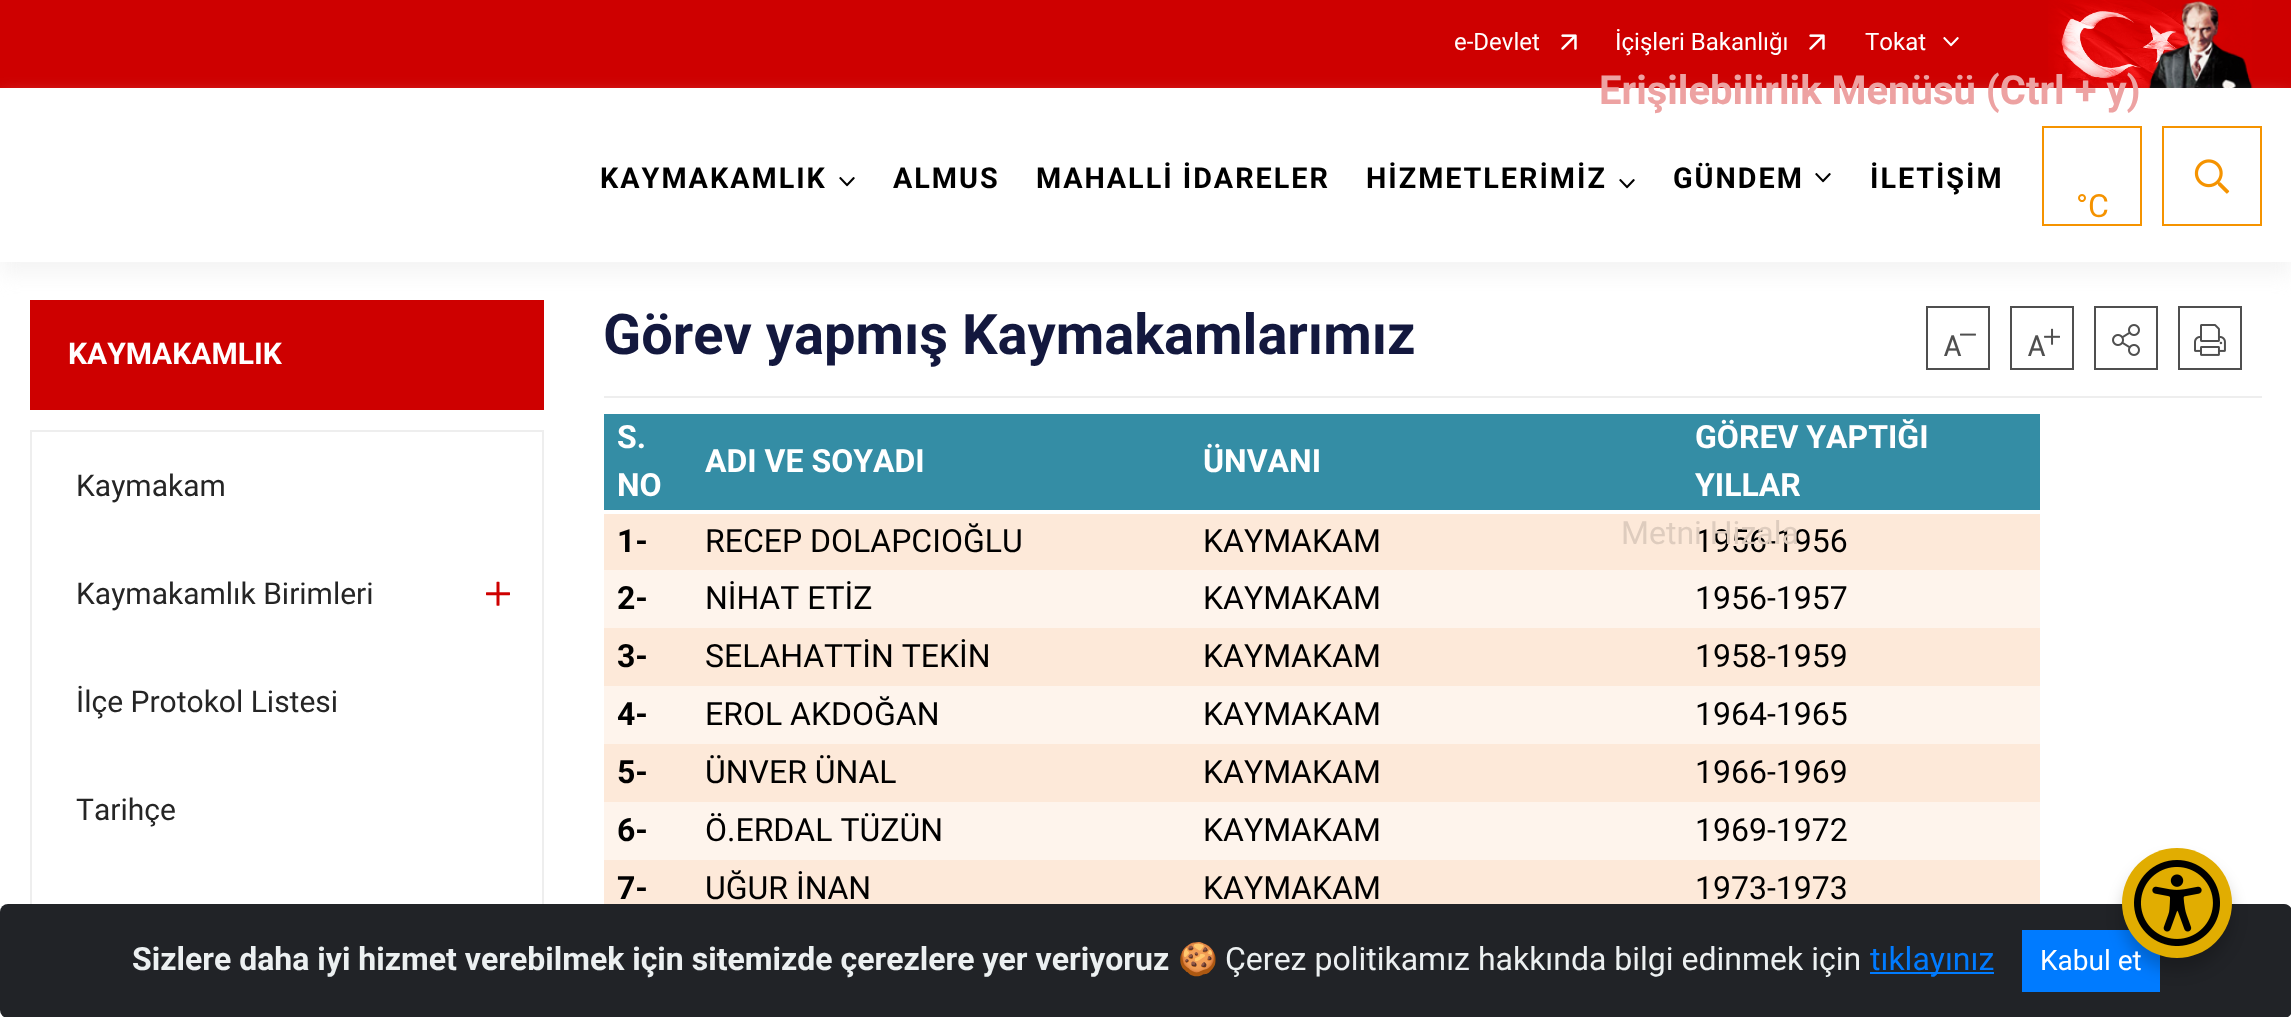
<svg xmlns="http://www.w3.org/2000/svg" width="2291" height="1017">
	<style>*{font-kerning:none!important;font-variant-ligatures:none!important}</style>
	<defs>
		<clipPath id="clip1"><path d="M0 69H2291V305H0ZM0 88H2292V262H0Z" clip-rule="evenodd" /></clipPath>
	</defs>
	<rect width="100%" height="100%" fill="#FFFFFF" />
	<rect x="0" y="0" width="2291" height="88" fill="#CE0000" />
	<text x="1454" y="50" font-family="Roboto" font-size="24" fill="#FFFFFF">e-Devlet</text>
	<image x="1561" y="34" width="16" height="16" href="assets/img1.png" />
	<text x="1615" y="50" font-family="Roboto" font-size="24" fill="#FFFFFF">İçişleri Bakanlığı</text>
	<image x="1809" y="34" width="16" height="16" href="assets/img1.png" />
	<text x="1865" y="50" font-family="Roboto" font-size="24" fill="#FFFFFF">Tokat</text>
	<image x="1943" y="37" width="16" height="10" href="assets/img2.png" />
	<image x="2048" y="0" width="205" height="88" href="assets/img3.png" />
	<rect x="30" y="300" width="514" height="110" fill="#CE0000" />
	<g clip-path="url(#clip1)">
		<rect x="0" y="100" width="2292" height="174" fill="#EEEEEE" fill-opacity="0.62" filter="blur(10px)" />
	</g>
	<text x="600" y="188" font-family="Roboto" font-size="28.75" font-weight="700" letter-spacing="2" fill="#000000">KAYMAKAMLIK</text>
	<image x="839" y="177" width="16" height="10" href="assets/img4.png" />
	<g font-family="Roboto" font-size="28.75" font-weight="700" letter-spacing="2" fill="#000000">
		<text x="893" y="188">ALMUS</text>
		<text x="1036" y="188">MAHALLİ İDARELER</text>
		<text x="1366" y="188">HİZMETLERİMİZ</text>
	</g>
	<image x="1619" y="179" width="16" height="10" href="assets/img4.png" />
	<text x="1673" y="188" font-family="Roboto" font-size="28.75" font-weight="700" letter-spacing="2" fill="#000000">GÜNDEM</text>
	<image x="1815" y="173" width="16" height="10" href="assets/img4.png" />
	<text x="1870" y="188" font-family="Roboto" font-size="28.75" font-weight="700" letter-spacing="2" fill="#000000">İLETİŞİM</text>
	<rect x="2043" y="127" width="98" height="98" fill="none" stroke="#F59300" stroke-width="2" />
	<text x="2076" y="217" font-family="Roboto" font-size="32" fill="#F59300">°C</text>
	<rect x="2163" y="127" width="98" height="98" fill="none" stroke="#F59300" stroke-width="2" />
	<image x="2194" y="159" width="36" height="35" href="assets/img5.png" />
	<text x="68" y="364" font-family="Roboto" font-size="30" font-weight="700" fill="#FFFFFF">KAYMAKAMLIK</text>
	<rect x="31" y="431" width="512" height="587" fill="none" stroke="#EEEEEE" stroke-width="2" />
	<g font-family="Roboto" font-size="30" fill="#252525">
		<text x="76" y="496">Kaymakam</text>
		<text x="76" y="604">Kaymakamlık Birimleri</text>
	</g>
	<image x="486" y="581" width="24" height="25" href="assets/img6.png" />
	<g font-family="Roboto" font-size="30" fill="#252525">
		<text x="76" y="712">İlçe Protokol Listesi</text>
		<text x="76" y="820">Tarihçe</text>
	</g>
	<rect x="604" y="396" width="1658" height="2" fill="#EEEEEE" />
	<text x="603" y="354" font-family="Roboto" font-size="56" font-weight="700" fill="#13183E">Görev yapmış Kaymakamlarımız</text>
	<rect x="1927" y="307" width="62" height="62" fill="none" stroke="#4F4F4F" stroke-width="2" />
	<image x="1944" y="333" width="32" height="23" href="assets/img7.png" />
	<rect x="2011" y="307" width="62" height="62" fill="none" stroke="#4F4F4F" stroke-width="2" />
	<image x="2028" y="328" width="32" height="28" href="assets/img8.png" />
	<rect x="2095" y="307" width="62" height="62" fill="none" stroke="#4F4F4F" stroke-width="2" />
	<image x="2112" y="324" width="28" height="32" href="assets/img9.png" />
	<rect x="2179" y="307" width="62" height="62" fill="none" stroke="#4F4F4F" stroke-width="2" />
	<image x="2194" y="324" width="32" height="32" href="assets/img10.png" />
	<rect x="604" y="414" width="1436" height="96" fill="#348DA5" />
	<g font-family="Roboto" font-size="32" font-weight="700" fill="#FFFFFF">
		<text x="617" y="448">S.</text>
		<text x="617" y="496">NO</text>
		<text x="705" y="472">ADI VE SOYADI</text>
		<text x="1203" y="472">ÜNVANI</text>
		<text x="1695" y="448">GÖREV YAPTIĞI</text>
		<text x="1695" y="496">YILLAR</text>
	</g>
	<rect x="604" y="514" width="1436" height="56" fill="#FDE9D9" />
	<text x="617" y="552" font-family="Roboto" font-size="32" font-weight="700" fill="#000000">1-</text>
	<g font-family="Roboto" font-size="32" fill="#000000">
		<text x="705" y="552">RECEP DOLAPCIOĞLU</text>
		<text x="1203" y="552">KAYMAKAM</text>
		<text x="1695" y="552">1956-1956</text>
	</g>
	<rect x="604" y="570" width="1436" height="58" fill="#FEF4EC" />
	<text x="617" y="609" font-family="Roboto" font-size="32" font-weight="700" fill="#000000">2-</text>
	<g font-family="Roboto" font-size="32" fill="#000000">
		<text x="705" y="609">NİHAT ETİZ</text>
		<text x="1203" y="609">KAYMAKAM</text>
		<text x="1695" y="609">1956-1957</text>
	</g>
	<rect x="604" y="628" width="1436" height="58" fill="#FDE9D9" />
	<text x="617" y="667" font-family="Roboto" font-size="32" font-weight="700" fill="#000000">3-</text>
	<g font-family="Roboto" font-size="32" fill="#000000">
		<text x="705" y="667">SELAHATTİN TEKİN</text>
		<text x="1203" y="667">KAYMAKAM</text>
		<text x="1695" y="667">1958-1959</text>
	</g>
	<rect x="604" y="686" width="1436" height="58" fill="#FEF4EC" />
	<text x="617" y="725" font-family="Roboto" font-size="32" font-weight="700" fill="#000000">4-</text>
	<g font-family="Roboto" font-size="32" fill="#000000">
		<text x="705" y="725">EROL AKDOĞAN</text>
		<text x="1203" y="725">KAYMAKAM</text>
		<text x="1695" y="725">1964-1965</text>
	</g>
	<rect x="604" y="744" width="1436" height="58" fill="#FDE9D9" />
	<text x="617" y="783" font-family="Roboto" font-size="32" font-weight="700" fill="#000000">5-</text>
	<g font-family="Roboto" font-size="32" fill="#000000">
		<text x="705" y="783">ÜNVER ÜNAL</text>
		<text x="1203" y="783">KAYMAKAM</text>
		<text x="1695" y="783">1966-1969</text>
	</g>
	<rect x="604" y="802" width="1436" height="58" fill="#FEF4EC" />
	<text x="617" y="841" font-family="Roboto" font-size="32" font-weight="700" fill="#000000">6-</text>
	<g font-family="Roboto" font-size="32" fill="#000000">
		<text x="705" y="841">Ö.ERDAL TÜZÜN</text>
		<text x="1203" y="841">KAYMAKAM</text>
		<text x="1695" y="841">1969-1972</text>
	</g>
	<rect x="604" y="860" width="1436" height="44" fill="#FDE9D9" />
	<text x="617" y="899" font-family="Roboto" font-size="32" font-weight="700" fill="#000000">7-</text>
	<g font-family="Roboto" font-size="32" fill="#000000">
		<text x="705" y="899">UĞUR İNAN</text>
		<text x="1203" y="899">KAYMAKAM</text>
		<text x="1695" y="899">1973-1973</text>
	</g>
	<text x="1599" y="104" font-family="Roboto" font-size="40" font-weight="700" fill="#EDA2A2">Erişilebilirlik Menüsü (Ctrl + y)</text>
	<text x="1621" y="544" font-family="Roboto" font-size="32" fill="#DECCBE">Metni Hizala</text>
	<rect x="0" y="904" width="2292" height="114" rx="8" fill="#212327" />
	<rect x="2022" y="930" width="138" height="62" fill="#007BFF" />
	<rect x="2122" y="860" width="110" height="110" rx="55" fill="#000000" fill-opacity="0.2" filter="blur(8px)" />
	<text x="2040" y="970" font-family="Roboto" font-size="28" fill="#FFFFFF">Kabul et</text>
	<circle cx="2177" cy="903" r="55" fill="#E1AD01" />
	<image x="2134" y="860" width="86" height="86" href="assets/img11.png" />
	<text x="132" y="970" font-family="Roboto" font-size="32" font-weight="700" fill="#ECF0F1">Sizlere daha iyi hizmet verebilmek için sitemizde çerezlere yer veriyoruz</text>
	<text x="1178" y="970" font-family="Noto Color Emoji" font-size="32" fill="#ECF0F1">🍪</text>
	<text x="1225" y="970" font-family="Roboto" font-size="32" fill="#ECF0F1">Çerez politikamız hakkında bilgi edinmek için</text>
	<rect x="1870" y="972" width="124" height="2" fill="#007BFF" />
	<text x="1870" y="970" font-family="Roboto" font-size="32" fill="#007BFF">tıklayınız</text>
</svg>
